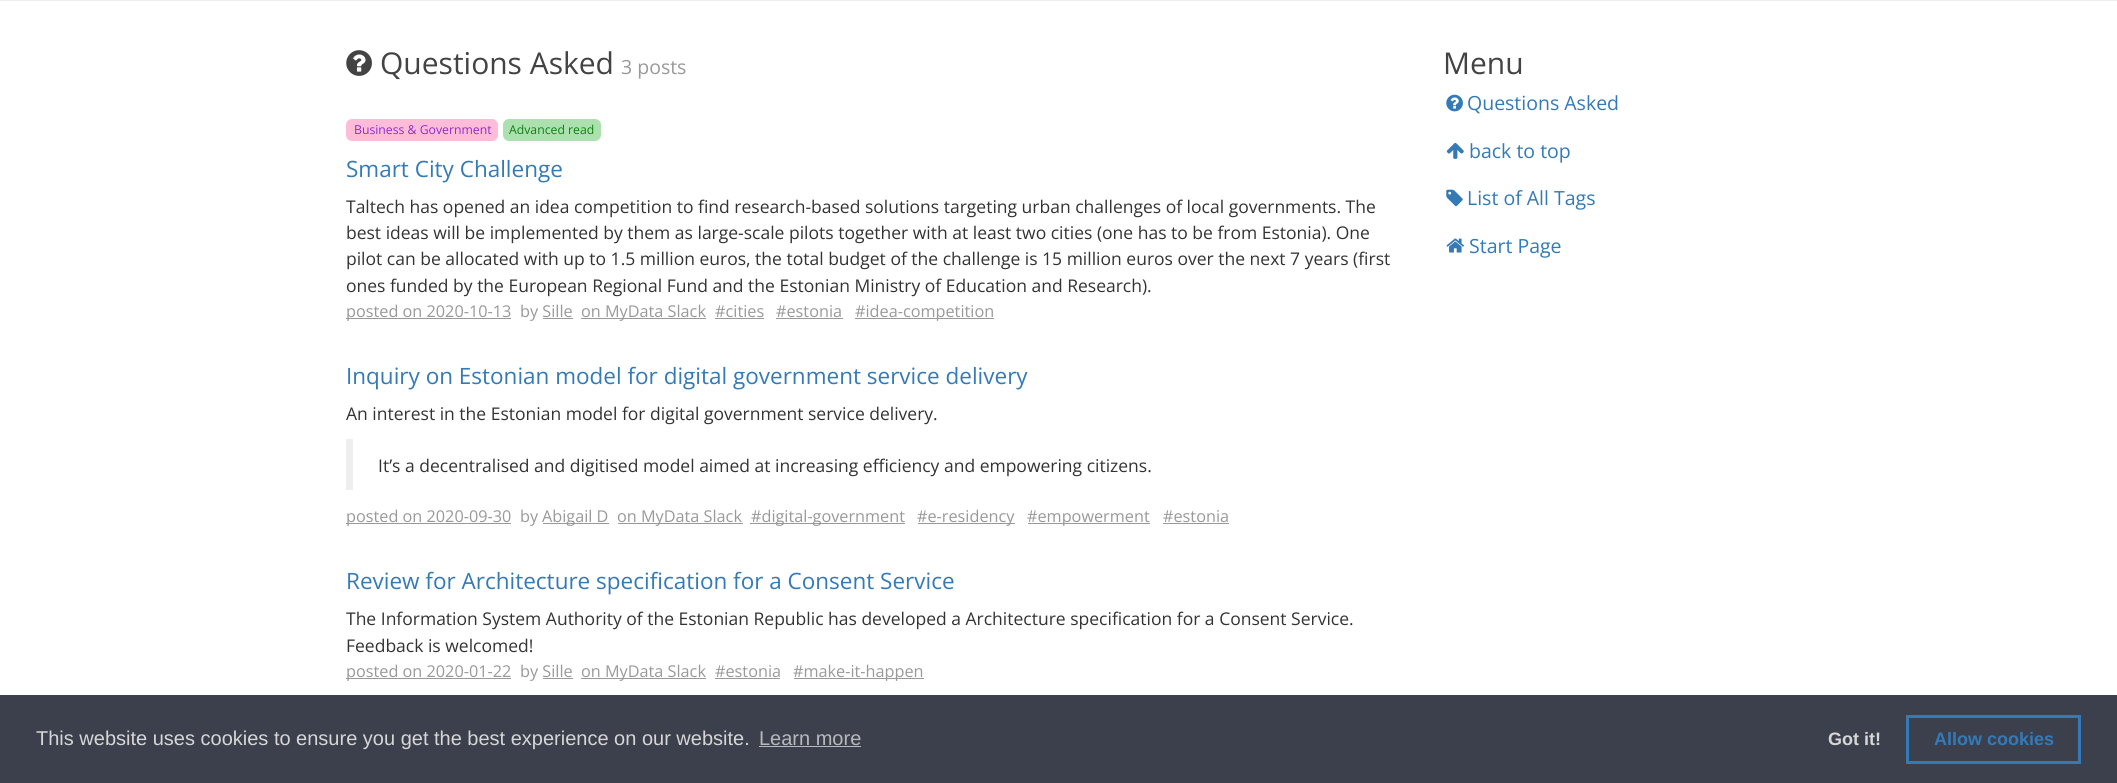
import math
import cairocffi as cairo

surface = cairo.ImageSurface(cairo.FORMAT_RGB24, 2117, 783)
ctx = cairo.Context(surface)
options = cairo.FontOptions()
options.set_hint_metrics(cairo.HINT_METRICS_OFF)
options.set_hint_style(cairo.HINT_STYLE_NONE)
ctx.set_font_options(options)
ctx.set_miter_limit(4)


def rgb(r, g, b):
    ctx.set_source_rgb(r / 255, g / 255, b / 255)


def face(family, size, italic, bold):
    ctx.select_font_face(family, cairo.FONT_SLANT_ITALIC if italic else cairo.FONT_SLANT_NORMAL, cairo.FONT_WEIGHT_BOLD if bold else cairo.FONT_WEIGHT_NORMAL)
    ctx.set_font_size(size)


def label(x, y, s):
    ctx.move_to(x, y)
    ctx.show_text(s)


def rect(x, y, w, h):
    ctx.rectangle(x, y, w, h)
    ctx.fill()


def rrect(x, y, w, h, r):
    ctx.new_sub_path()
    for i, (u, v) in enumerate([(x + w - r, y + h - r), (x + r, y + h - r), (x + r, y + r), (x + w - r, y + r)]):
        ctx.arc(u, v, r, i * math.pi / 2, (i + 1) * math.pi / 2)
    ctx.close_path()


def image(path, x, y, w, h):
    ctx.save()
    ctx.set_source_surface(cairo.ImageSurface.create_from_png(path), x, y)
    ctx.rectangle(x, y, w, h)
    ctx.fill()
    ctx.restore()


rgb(255, 255, 255)
ctx.paint()
rgb(238, 238, 238)
rect(0, 0, 2117, 1)
image('image0.png', 346, 50, 26, 26)
face('Open Sans', 30, 0, 0)
rgb(67, 67, 67)
label(380, 74, 'Questions Asked')
face('Open Sans', 19.5, 0, 0)
rgb(153, 153, 153)
label(621, 74, '3 posts')
rgb(255, 188, 217)
rrect(346, 119, 152, 22, 6)
ctx.fill()
face('Open Sans', 12.25, 0, 0)
rgb(142, 44, 197)
label(354, 134, 'Business & Government')
rgb(172, 225, 175)
rrect(503, 119, 98, 22, 6)
ctx.fill()
rgb(16, 127, 18)
label(509, 134, 'Advanced read')
face('Open Sans', 22.5, 0, 0)
rgb(51, 122, 183)
label(346, 177, 'Smart City Challenge')
face('Open Sans', 17.5, 0, 0)
rgb(51, 51, 51)
label(346, 213, 'Taltech has opened an idea competition to find research-based solutions targeting urban challenges of local governments. The')
label(346, 239, 'best ideas will be implemented by them as large-scale pilots together with at least two cities (one has to be from Estonia). One')
label(346, 265, 'pilot can be allocated with up to 1.5 million euros, the total budget of the challenge is 15 million euros over the next 7 years (first')
label(346, 292, 'ones funded by the European Regional Fund and the Estonian Ministry of Education and Research).')
rgb(153, 153, 153)
rect(346, 318, 165, 1)
face('Open Sans', 16.25, 0, 0)
label(346, 317, 'posted on 2020-10-13')
label(520, 317, 'by Sille')
rect(543, 318, 30, 1)
rect(581, 318, 125, 1)
label(581, 317, 'on MyData Slack')
label(715, 317, '#cities')
rect(715, 318, 49, 1)
label(776, 317, '#estonia')
rect(776, 318, 67, 1)
rect(855, 318, 139, 1)
label(855, 317, '#idea-competition')
face('Open Sans', 22.5, 0, 0)
rgb(51, 122, 183)
label(346, 384, 'Inquiry on Estonian model for digital government service delivery')
face('Open Sans', 17.5, 0, 0)
rgb(51, 51, 51)
label(346, 420, 'An interest in the Estonian model for digital government service delivery.')
rgb(238, 238, 238)
rect(346, 439, 7, 51)
rgb(51, 51, 51)
label(378, 472, 'It’s a decentralised and digitised model aimed at increasing efficiency and empowering citizens.')
rgb(153, 153, 153)
rect(346, 523, 165, 1)
face('Open Sans', 16.25, 0, 0)
label(346, 522, 'posted on 2020-09-30')
label(520, 522, 'by')
rect(543, 523, 66, 1)
label(542, 522, 'Abigail D')
rect(618, 523, 125, 1)
label(617, 522, 'on MyData Slack')
rect(750, 523, 155, 1)
label(751, 522, '#digital-government')
rect(918, 523, 97, 1)
label(917, 522, '#e-residency')
rect(1028, 523, 122, 1)
label(1027, 522, '#empowerment')
label(1163, 522, '#estonia')
rect(1163, 523, 66, 1)
face('Open Sans', 22.5, 0, 0)
rgb(51, 122, 183)
label(346, 589, 'Review for Architecture specification for a Consent Service')
face('Open Sans', 17.5, 0, 0)
rgb(51, 51, 51)
label(346, 625, 'The Information System Authority of the Estonian Republic has developed a Architecture specification for a Consent Service.')
label(346, 652, 'Feedback is welcomed!')
rgb(153, 153, 153)
rect(346, 678, 165, 1)
face('Open Sans', 16.25, 0, 0)
label(346, 677, 'posted on 2020-01-22')
label(520, 677, 'by Sille')
rect(543, 678, 30, 1)
rect(581, 678, 125, 1)
label(581, 677, 'on MyData Slack')
label(715, 677, '#estonia')
rect(715, 678, 65, 1)
rect(794, 678, 130, 1)
label(793, 677, '#make-it-happen')
face('Open Sans', 30, 0, 0)
rgb(67, 67, 67)
label(1443, 74, 'Menu')
image('image1.png', 1446, 94, 17, 18)
face('Open Sans', 19.5, 0, 0)
rgb(51, 122, 183)
label(1467, 110, 'Questions Asked')
image('image2.png', 1446, 142, 18, 17)
label(1469, 158, 'back to top')
image('image3.png', 1446, 189, 17, 18)
label(1467, 205, 'List of All Tags')
image('image4.png', 1446, 238, 18, 15)
label(1469, 253, 'Start Page')
rgb(60, 64, 77)
rect(0, 695, 2117, 88)
face('Liberation Sans', 20, 0, 0)
rgb(214, 214, 214)
label(36, 745, 'This website uses cookies to ensure you get the best experience on our website.')
rgb(183, 184, 187)
label(759, 745, 'Learn more')
rect(759, 746, 102, 1)
face('Liberation Sans', 18, 0, 1)
rgb(214, 214, 214)
label(1828, 745, 'Got it!')
ctx.rectangle(1907.5, 716.5, 172, 46)
rgb(51, 122, 183)
ctx.set_line_width(3)
ctx.stroke()
label(1934, 745, 'Allow cookies')
surface.write_to_png('render.png')
